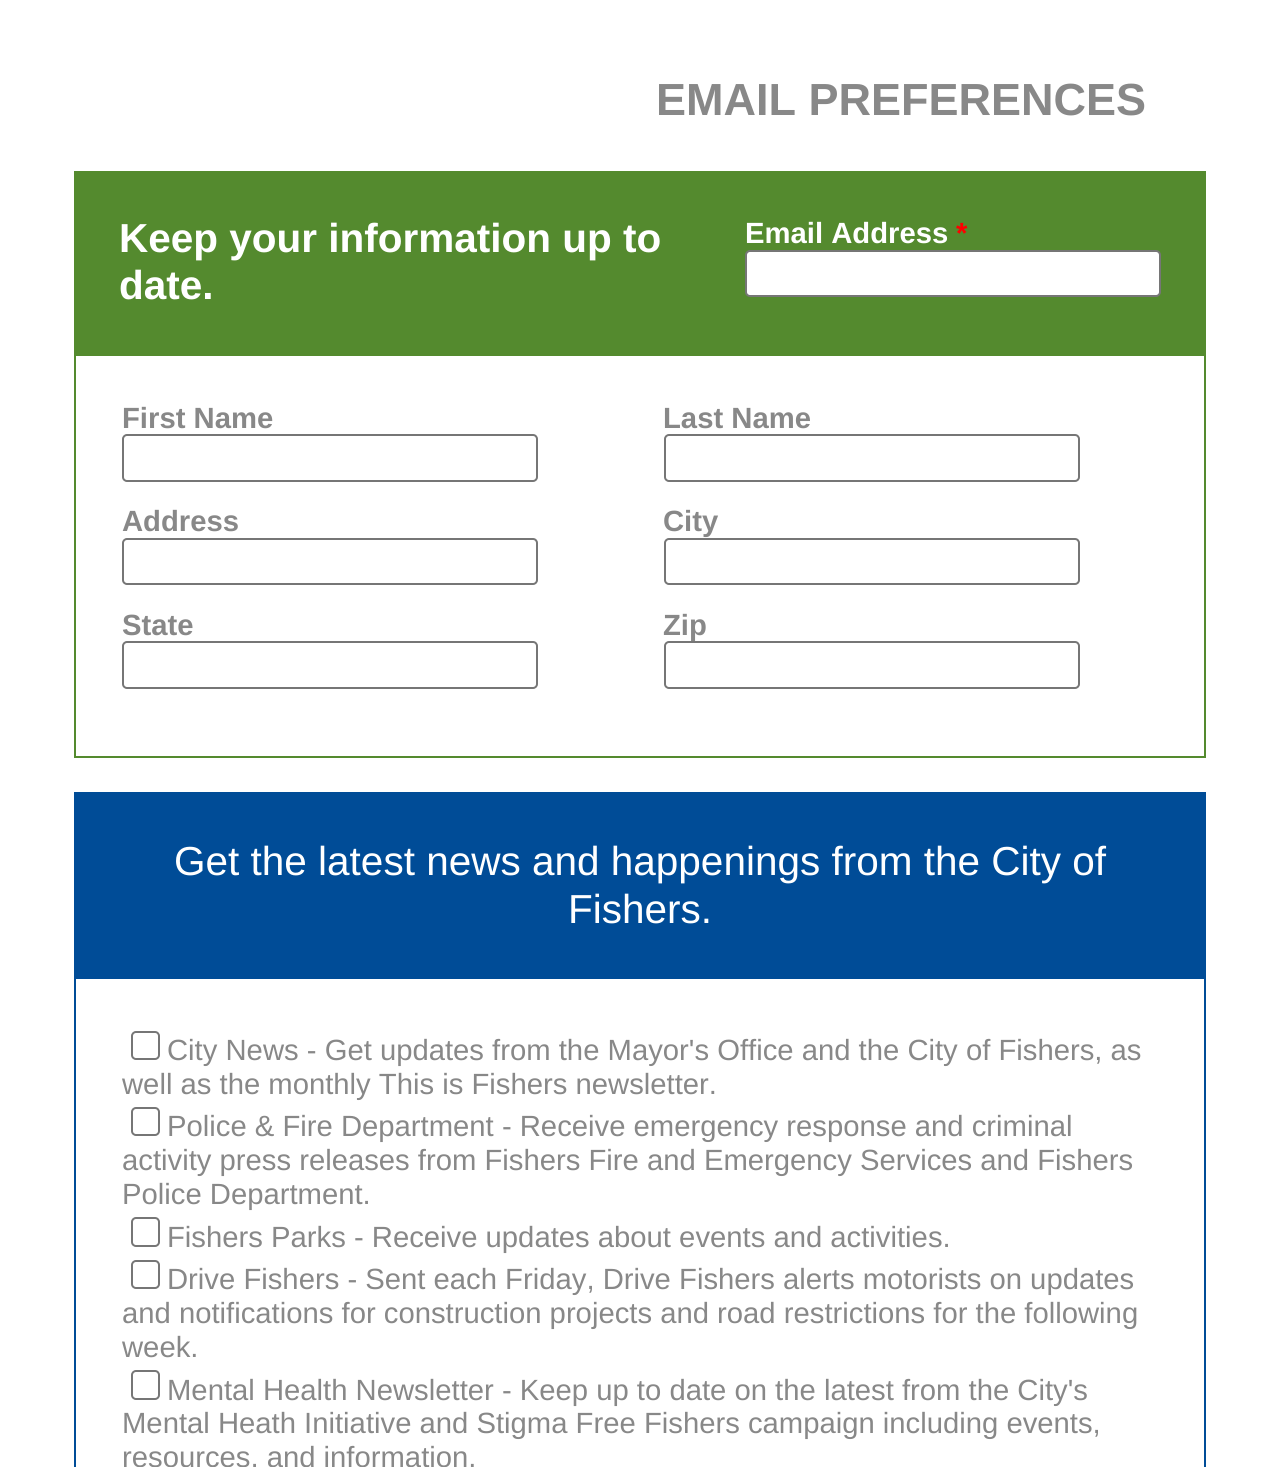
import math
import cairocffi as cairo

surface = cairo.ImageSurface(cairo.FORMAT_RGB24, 1279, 1467)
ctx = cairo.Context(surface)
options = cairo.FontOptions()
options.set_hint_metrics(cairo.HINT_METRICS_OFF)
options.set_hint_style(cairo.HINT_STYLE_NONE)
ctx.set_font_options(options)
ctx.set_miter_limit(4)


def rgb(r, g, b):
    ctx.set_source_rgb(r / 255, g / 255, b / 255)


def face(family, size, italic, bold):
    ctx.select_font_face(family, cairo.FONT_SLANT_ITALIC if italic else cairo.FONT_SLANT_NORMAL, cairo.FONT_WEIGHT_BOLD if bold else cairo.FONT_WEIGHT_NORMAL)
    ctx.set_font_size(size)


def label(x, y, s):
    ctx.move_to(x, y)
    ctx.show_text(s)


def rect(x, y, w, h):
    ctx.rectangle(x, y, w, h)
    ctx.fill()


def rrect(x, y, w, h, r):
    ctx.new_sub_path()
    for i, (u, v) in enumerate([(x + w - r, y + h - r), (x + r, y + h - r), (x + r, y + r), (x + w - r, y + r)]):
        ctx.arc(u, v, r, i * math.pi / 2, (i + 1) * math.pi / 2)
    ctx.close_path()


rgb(255, 255, 255)
ctx.paint()
face('Liberation Sans', 45, 0, 1)
rgb(136, 136, 136)
label(656, 115, 'EMAIL PREFERENCES')
rgb(84, 138, 46)
rect(74, 171, 1132, 45)
rect(74, 216, 1132, 140)
face('Liberation Sans', 40.5, 0, 1)
rgb(255, 255, 255)
label(119, 252, 'Keep your information up to')
label(119, 299, 'date.')
face('Liberation Sans', 29.25, 0, 1)
label(745, 243, 'Email Address')
rgb(255, 0, 0)
label(956, 243, '*')
rgb(255, 255, 255)
rrect(746, 251, 414, 45, 4)
ctx.fill_preserve()
rgb(118, 118, 118)
ctx.stroke()
rgb(84, 138, 46)
rect(1204, 356, 2, 402)
rect(74, 756, 1132, 2)
rect(74, 356, 2, 402)
rgb(136, 136, 136)
label(122, 428, 'First Name')
rrect(123, 435, 414, 46, 4)
rgb(118, 118, 118)
ctx.stroke()
rgb(136, 136, 136)
label(663, 428, 'Last Name')
rrect(665, 435, 414, 46, 4)
rgb(118, 118, 118)
ctx.stroke()
rgb(136, 136, 136)
label(122, 531, 'Address')
rrect(123, 539, 414, 45, 4)
rgb(118, 118, 118)
ctx.stroke()
rgb(136, 136, 136)
label(663, 531, 'City')
rrect(665, 539, 414, 45, 4)
rgb(118, 118, 118)
ctx.stroke()
rgb(136, 136, 136)
label(122, 635, 'State')
rrect(123, 642, 414, 46, 4)
rgb(118, 118, 118)
ctx.stroke()
rgb(136, 136, 136)
label(663, 635, 'Zip')
rgb(255, 255, 255)
rrect(665, 642, 414, 46, 4)
ctx.fill_preserve()
rgb(118, 118, 118)
ctx.stroke()
rgb(0, 76, 151)
rect(74, 792, 1132, 187)
face('Liberation Sans', 40.5, 0, 0)
rgb(255, 255, 255)
label(174, 875, 'Get the latest news and happenings from the City of')
label(568, 923, 'Fishers.')
rgb(0, 76, 151)
rect(1204, 979, 2, 488)
rect(74, 979, 2, 488)
rrect(132, 1032, 27, 27, 4)
rgb(118, 118, 118)
ctx.stroke()
face('Liberation Sans', 29.25, 0, 0)
rgb(136, 136, 136)
label(167, 1060, 'City News - Get updates from the Mayor\'s Office and the City of Fishers, as')
label(122, 1094, 'well as the monthly This is Fishers newsletter.')
rrect(132, 1108, 27, 27, 4)
rgb(118, 118, 118)
ctx.stroke()
rgb(136, 136, 136)
label(167, 1136, 'Police & Fire Department - Receive emergency response and criminal')
label(122, 1170, 'activity press releases from Fishers Fire and Emergency Services and Fishers')
label(122, 1204, 'Police Department.')
rrect(132, 1218, 27, 28, 4)
rgb(118, 118, 118)
ctx.stroke()
rgb(136, 136, 136)
label(167, 1247, 'Fishers Parks - Receive updates about events and activities.')
rrect(132, 1261, 27, 27, 4)
rgb(118, 118, 118)
ctx.stroke()
rgb(136, 136, 136)
label(167, 1289, 'Drive Fishers - Sent each Friday, Drive Fishers alerts motorists on updates')
label(122, 1323, 'and notifications for construction projects and road restrictions for the following')
label(122, 1357, 'week.')
rrect(132, 1371, 27, 28, 4)
rgb(118, 118, 118)
ctx.stroke()
rgb(136, 136, 136)
label(167, 1400, 'Mental Health Newsletter - Keep up to date on the latest from the City\'s')
label(122, 1433, 'Mental Heath Initiative and Stigma Free Fishers campaign including events,')
label(122, 1467, 'resources, and information.')
surface.write_to_png('render.png')
